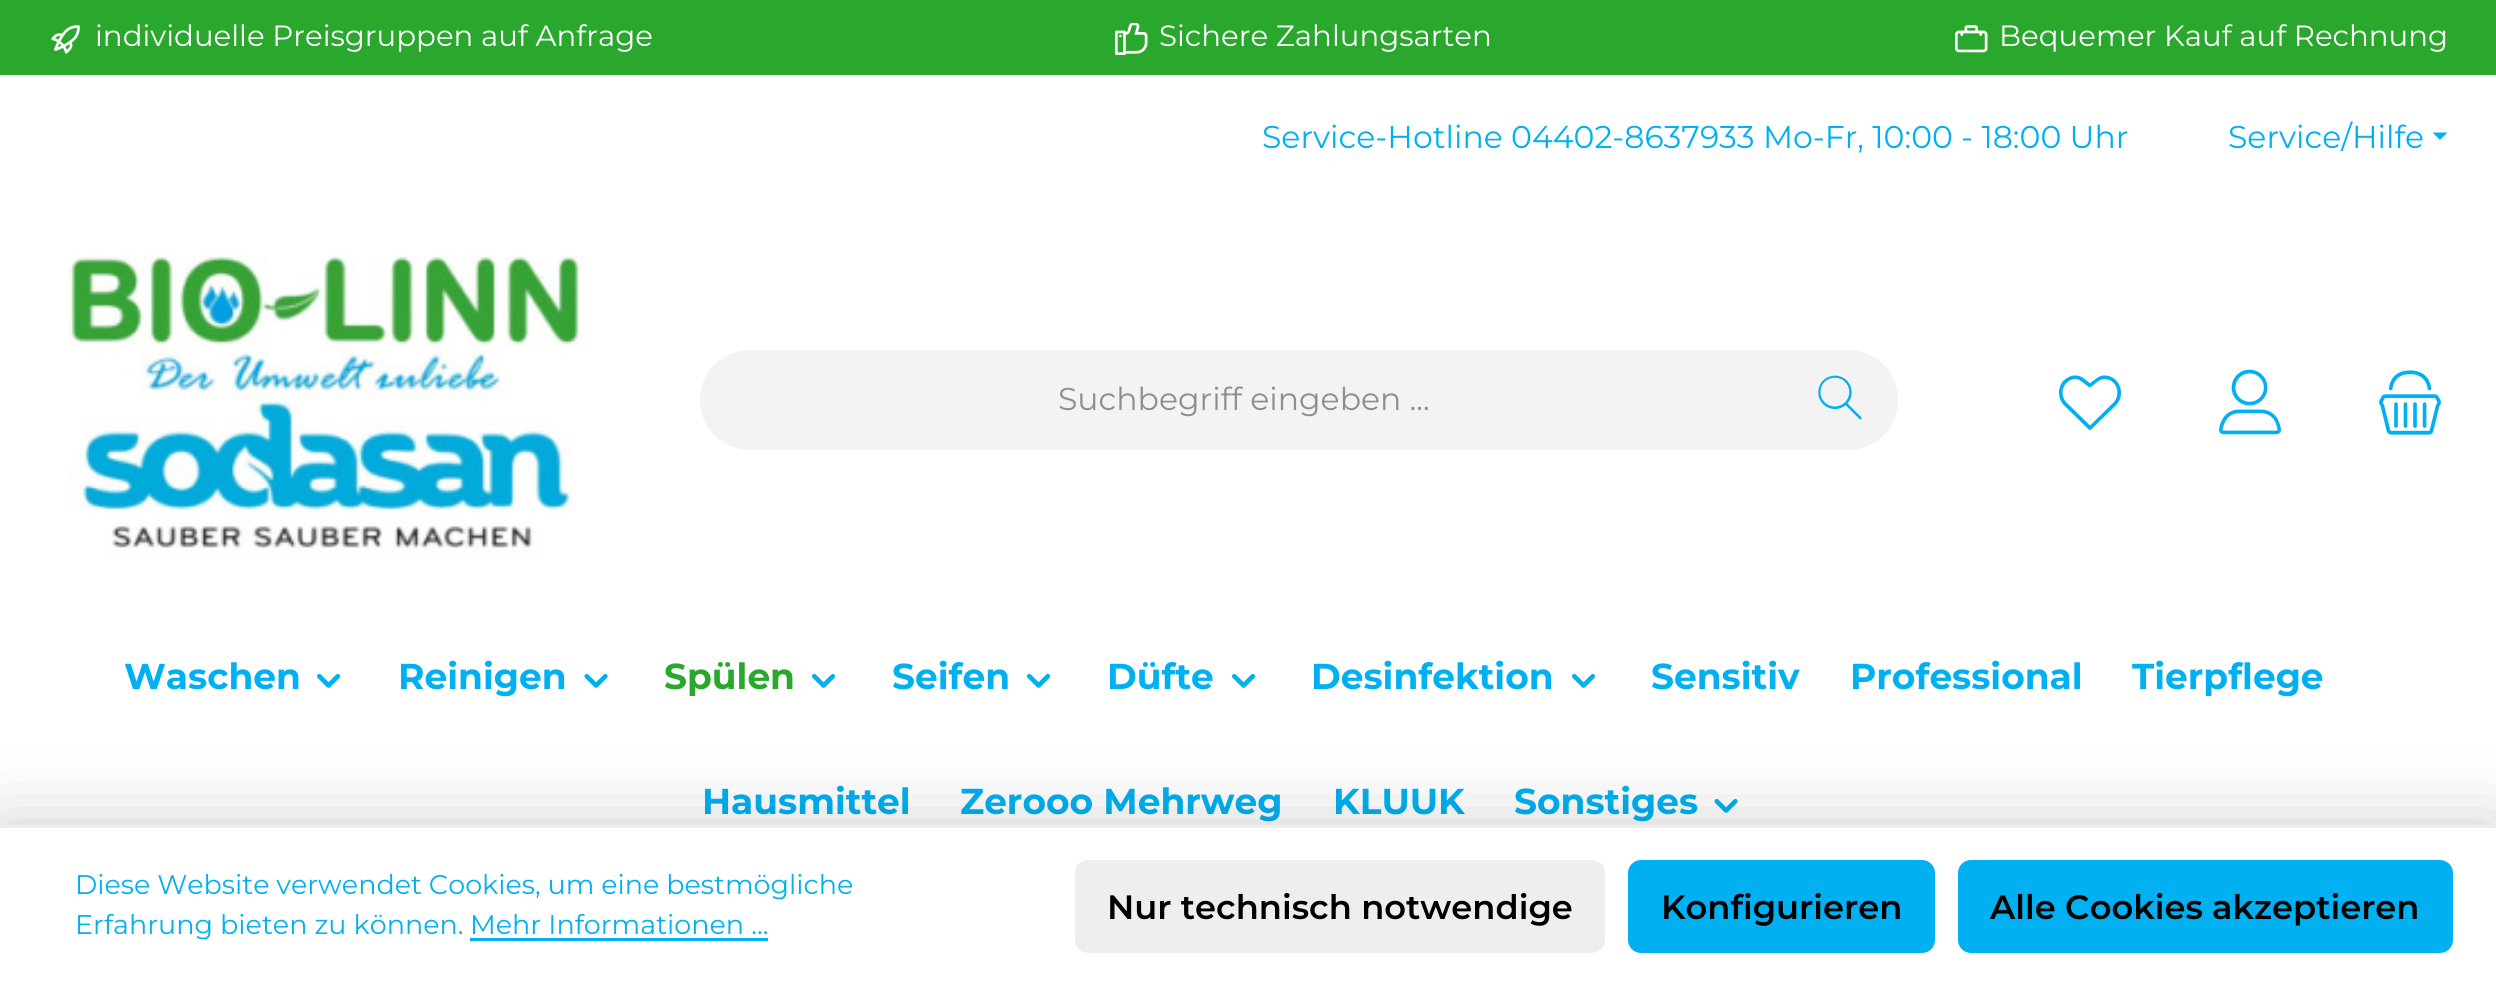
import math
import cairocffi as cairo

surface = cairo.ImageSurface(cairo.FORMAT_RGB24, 2496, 983)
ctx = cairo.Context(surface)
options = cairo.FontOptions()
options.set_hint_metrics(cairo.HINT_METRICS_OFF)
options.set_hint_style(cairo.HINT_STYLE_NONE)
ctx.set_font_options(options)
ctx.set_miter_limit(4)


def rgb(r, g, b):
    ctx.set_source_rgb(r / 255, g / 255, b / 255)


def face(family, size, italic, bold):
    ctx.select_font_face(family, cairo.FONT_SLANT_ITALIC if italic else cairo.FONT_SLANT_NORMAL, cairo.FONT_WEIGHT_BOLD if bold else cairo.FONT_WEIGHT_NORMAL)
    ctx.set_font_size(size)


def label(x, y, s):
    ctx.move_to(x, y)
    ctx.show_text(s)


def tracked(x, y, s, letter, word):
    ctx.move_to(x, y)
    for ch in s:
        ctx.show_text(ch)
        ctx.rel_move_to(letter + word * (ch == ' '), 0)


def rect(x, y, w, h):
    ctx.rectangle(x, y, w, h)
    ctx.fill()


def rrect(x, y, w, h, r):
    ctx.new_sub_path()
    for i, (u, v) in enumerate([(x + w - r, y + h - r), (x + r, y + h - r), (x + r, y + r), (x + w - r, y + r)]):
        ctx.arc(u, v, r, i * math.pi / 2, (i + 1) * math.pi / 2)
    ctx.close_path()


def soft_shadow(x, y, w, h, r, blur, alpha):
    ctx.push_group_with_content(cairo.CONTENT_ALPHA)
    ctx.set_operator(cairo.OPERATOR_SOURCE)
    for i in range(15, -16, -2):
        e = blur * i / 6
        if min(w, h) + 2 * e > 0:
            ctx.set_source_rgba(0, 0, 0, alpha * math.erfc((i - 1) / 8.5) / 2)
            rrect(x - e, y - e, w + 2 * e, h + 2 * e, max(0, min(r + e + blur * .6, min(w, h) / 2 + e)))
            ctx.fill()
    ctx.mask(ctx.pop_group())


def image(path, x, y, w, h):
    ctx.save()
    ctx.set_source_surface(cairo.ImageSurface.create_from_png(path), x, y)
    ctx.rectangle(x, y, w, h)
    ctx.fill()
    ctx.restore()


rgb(255, 255, 255)
ctx.paint()
rgb(42, 168, 45)
rect(0, 0, 2496, 75)
image('image0.png', 51, 25, 29, 29)
face('Montserrat Thin', 29.25, 0, 0)
rgb(255, 255, 255)
label(95, 46, 'individuelle Preisgruppen auf Anfrage')
image('image1.png', 1115, 23, 33, 32)
label(1159, 46, 'Sichere Zahlungsarten')
image('image2.png', 1955, 25, 33, 28)
label(1999, 46, 'Bequemer Kauf auf Rechnung')
face('Montserrat Thin', 31.5, 0, 0)
rgb(0, 176, 240)
label(1262, 148, 'Service-Hotline 04402-8637933 Mo-Fr, 10:00 - 18:00 Uhr')
label(2228, 148, 'Service/Hilfe')
ctx.new_path()
ctx.move_to(2432.5, 132.5)
ctx.line_to(2447.5, 132.5)
ctx.line_to(2440, 140)
ctx.close_path()
ctx.fill()
image('image3.png', 68, 255, 522, 303)
rgb(243, 243, 243)
ctx.new_path()
ctx.move_to(750, 351.5)
ctx.line_to(1786.5, 351.5)
ctx.line_to(1786.5, 448.5)
ctx.line_to(750, 448.5)
ctx.curve_to(723, 448.5, 701.5, 427, 701.5, 400)
ctx.curve_to(701.5, 373, 723, 351.5, 750, 351.5)
ctx.close_path()
ctx.fill_preserve()
ctx.set_line_width(3)
ctx.stroke()
rgb(142, 142, 142)
label(1058, 410, 'Suchbegriff eingeben ...')
rgb(243, 243, 243)
ctx.new_path()
ctx.move_to(1785, 350)
ctx.line_to(1848, 350)
ctx.curve_to(1875.5, 350, 1898, 372.5, 1898, 400)
ctx.curve_to(1898, 427.5, 1875.5, 450, 1848, 450)
ctx.line_to(1785, 450)
ctx.close_path()
ctx.fill()
ctx.set_fill_rule(cairo.FILL_RULE_EVEN_ODD)
ctx.new_path()
ctx.move_to(1785, 350)
ctx.line_to(1848, 350)
ctx.curve_to(1875, 350, 1898, 372, 1898, 400)
ctx.curve_to(1898, 428, 1875, 450, 1848, 450)
ctx.line_to(1785, 450)
ctx.close_path()
ctx.move_to(1785, 352)
ctx.line_to(1848, 352)
ctx.curve_to(1874, 352, 1895, 374, 1895, 400)
ctx.curve_to(1895, 426, 1874, 448, 1848, 448)
ctx.line_to(1785, 448)
ctx.close_path()
ctx.fill()
image('image4.png', 1818, 375, 44, 45)
image('image5.png', 2059, 375, 62, 55)
image('image6.png', 2219, 369, 62, 66)
image('image7.png', 2379, 370, 62, 65)
face('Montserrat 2 Thin', 36, 0, 0)
rgb(0, 176, 240)
label(124, 689, 'Waschen')
image('image8.png', 317, 673, 24, 15)
label(398, 689, 'Reinigen')
image('image9.png', 584, 673, 24, 15)
rgb(42, 168, 45)
label(664, 689, 'Spülen')
image('image8.png', 812, 673, 24, 15)
rgb(0, 176, 240)
label(892, 689, 'Seifen')
image('image8.png', 1027, 673, 24, 15)
label(1107, 689, 'Düfte')
image('image8.png', 1232, 673, 24, 15)
label(1311, 689, 'Desinfektion')
image('image8.png', 1572, 673, 24, 15)
label(1651, 689, 'Sensitiv')
label(1850, 689, 'Professional')
label(2132, 689, 'Tierpflege')
label(702, 814, 'Hausmittel')
label(960, 814, 'Zerooo Mehrweg')
label(1333, 814, 'KLUUK')
label(1514, 814, 'Sonstiges')
image('image9.png', 1714, 798, 24, 15)
rgb(0, 0, 0)
soft_shadow(0, 825, 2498, 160, 0, 37.5, 0.2)
rgb(255, 255, 255)
rect(0, 828, 2496, 155)
rgb(238, 238, 238)
rect(0, 825, 2496, 3)
face('Montserrat Thin', 27, 0, 0)
rgb(0, 176, 240)
tracked(75, 894, 'Diese Website verwendet Cookies, um eine bestmögliche', 0, -0.25)
label(75, 934, 'Erfahrung bieten zu können.')
label(470, 934, 'Mehr Informationen ...')
rect(470, 938, 298, 3)
rgb(238, 238, 238)
rrect(1076.5, 861.5, 527, 90, 11.5)
ctx.fill_preserve()
ctx.stroke()
face('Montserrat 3 Thin', 33.75, 0, 0)
rgb(0, 0, 0)
label(1107, 919, 'Nur technisch notwendige')
rgb(0, 176, 240)
rrect(1629.5, 861.5, 304, 90, 11.5)
ctx.fill_preserve()
ctx.stroke()
rgb(0, 0, 0)
label(1661, 919, 'Konfigurieren')
rgb(0, 176, 240)
rrect(1959.5, 861.5, 492, 90, 11.5)
ctx.fill_preserve()
ctx.stroke()
rgb(0, 0, 0)
label(1990, 919, 'Alle Cookies akzeptieren')
surface.write_to_png('render.png')
